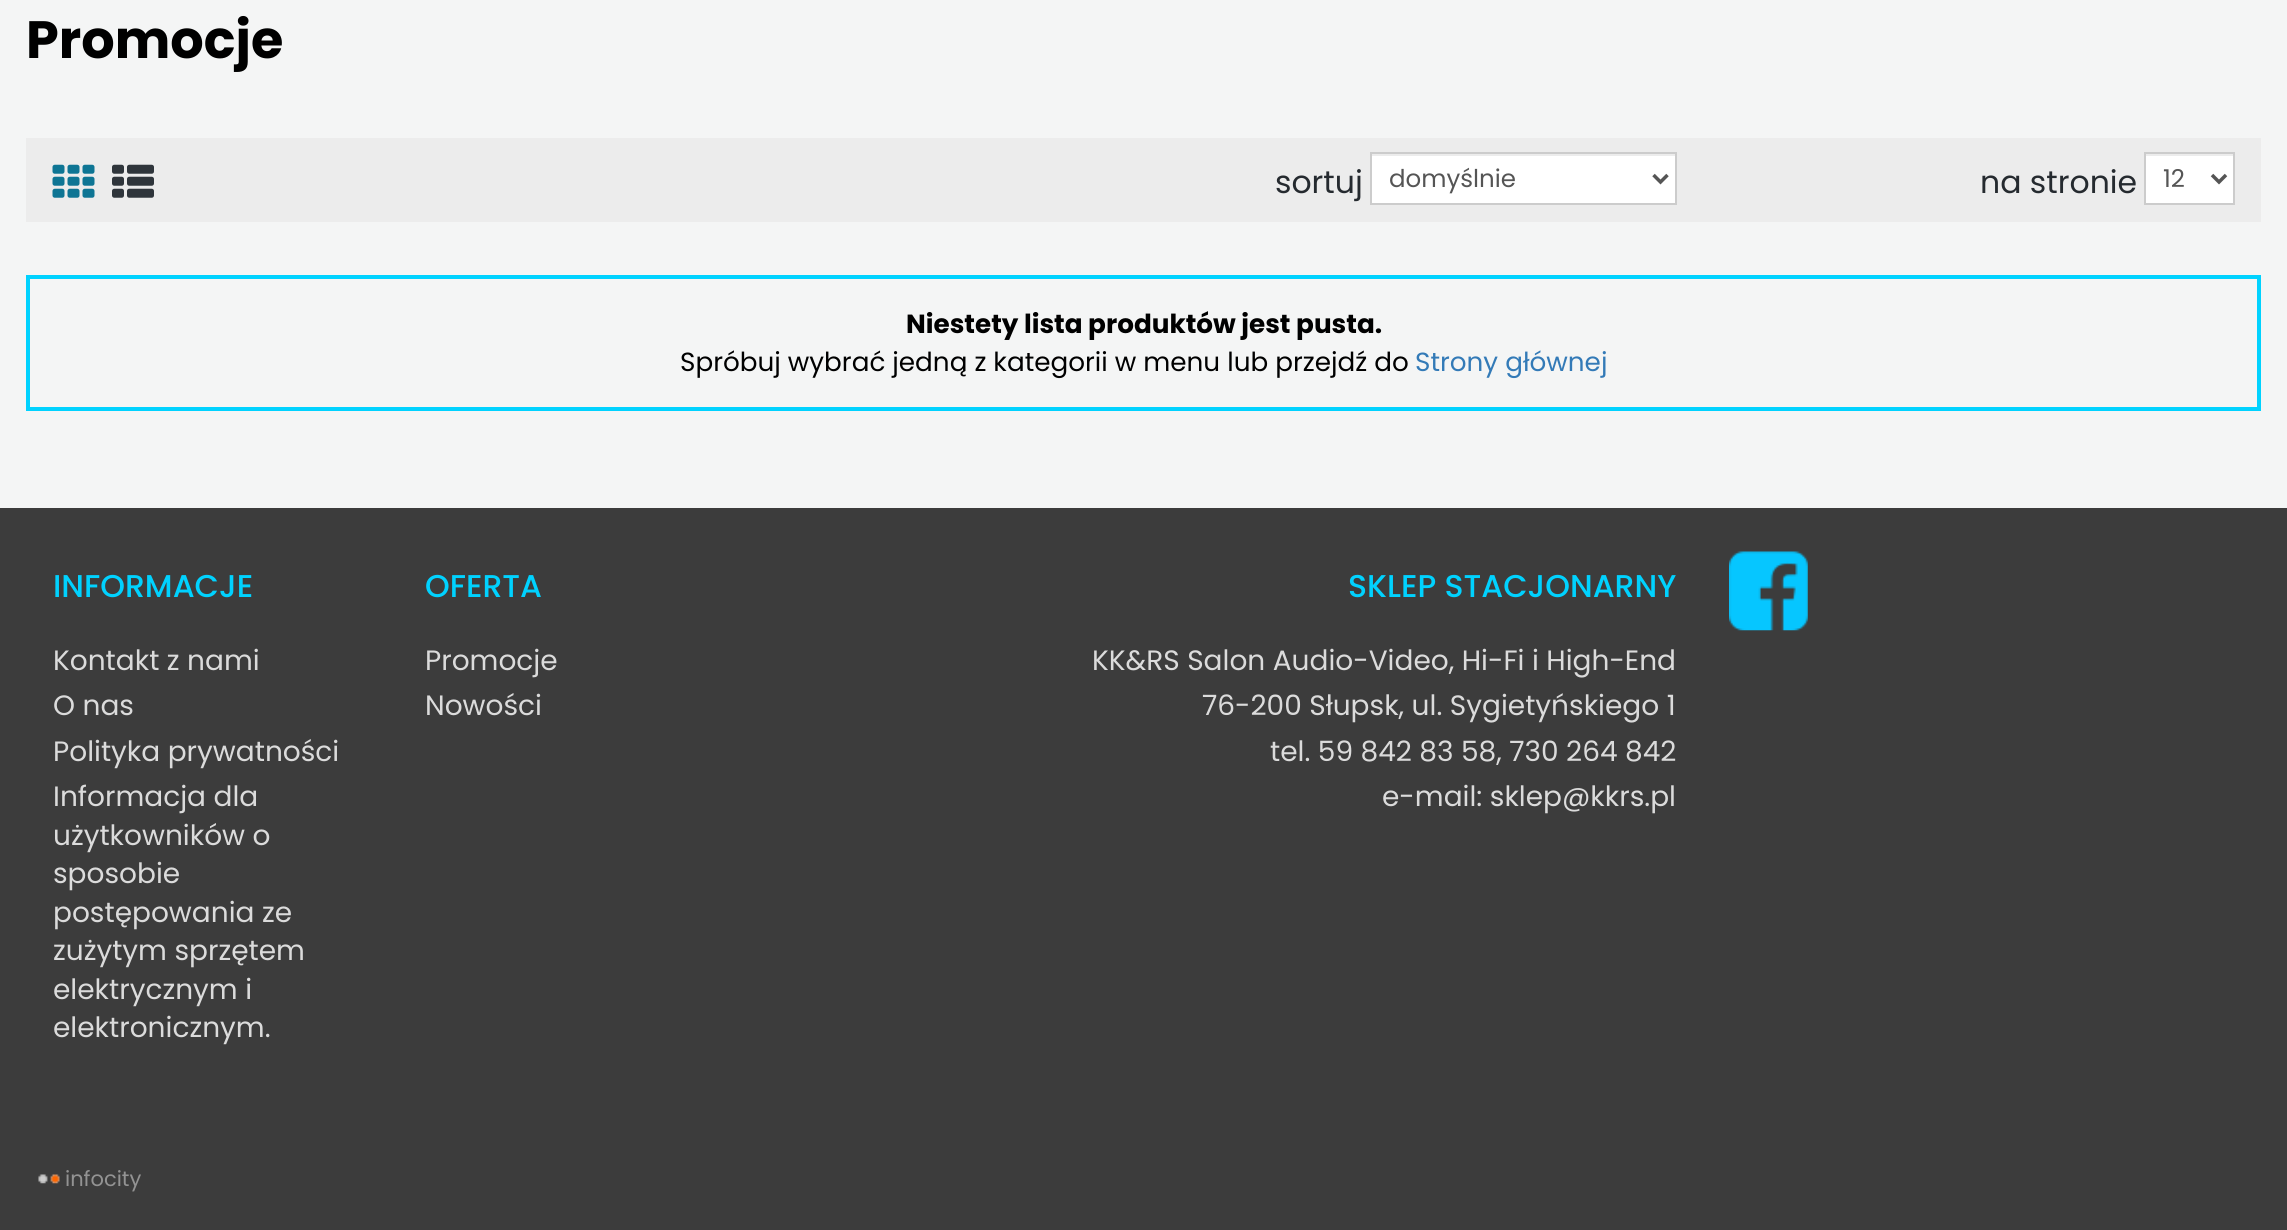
import math
import cairocffi as cairo

surface = cairo.ImageSurface(cairo.FORMAT_RGB24, 2287, 1230)
ctx = cairo.Context(surface)
options = cairo.FontOptions()
options.set_hint_metrics(cairo.HINT_METRICS_OFF)
options.set_hint_style(cairo.HINT_STYLE_NONE)
ctx.set_font_options(options)
ctx.set_miter_limit(4)


def rgb(r, g, b):
    ctx.set_source_rgb(r / 255, g / 255, b / 255)


def face(family, size, italic, bold):
    ctx.select_font_face(family, cairo.FONT_SLANT_ITALIC if italic else cairo.FONT_SLANT_NORMAL, cairo.FONT_WEIGHT_BOLD if bold else cairo.FONT_WEIGHT_NORMAL)
    ctx.set_font_size(size)


def label(x, y, s):
    ctx.move_to(x, y)
    ctx.show_text(s)


def rect(x, y, w, h):
    ctx.rectangle(x, y, w, h)
    ctx.fill()


def image(path, x, y, w, h):
    ctx.save()
    ctx.set_source_surface(cairo.ImageSurface.create_from_png(path), x, y)
    ctx.rectangle(x, y, w, h)
    ctx.fill()
    ctx.restore()


rgb(244, 245, 245)
ctx.paint()
face('Poppins', 52.5, 0, 1)
rgb(0, 0, 0)
label(26, 58, 'Promocje')
rgb(236, 236, 236)
rect(26, 138, 2235, 84)
image('image0.png', 52, 164, 43, 34)
image('image1.png', 112, 164, 42, 34)
face('Poppins', 31.5, 0, 0)
rgb(37, 42, 47)
label(1275, 193, 'sortuj')
rgb(255, 255, 255)
rect(1372, 156, 303, 47)
ctx.rectangle(1371, 153, 305, 51)
rgb(204, 204, 204)
ctx.stroke()
ctx.new_path()
ctx.move_to(1653.5, 175)
ctx.line_to(1660.5, 182)
ctx.line_to(1667.5, 175)
rgb(85, 85, 85)
ctx.set_line_width(3.5)
ctx.stroke()
face('Poppins', 24.5, 0, 0)
label(1389, 187, 'domyślnie')
face('Poppins', 31.5, 0, 0)
rgb(37, 42, 47)
label(1980, 193, 'na stronie')
rgb(255, 255, 255)
rect(2146, 156, 87, 47)
ctx.rectangle(2145, 153, 89, 51)
rgb(204, 204, 204)
ctx.set_line_width(2)
ctx.stroke()
ctx.new_path()
ctx.move_to(2212, 175)
ctx.line_to(2219, 182)
ctx.line_to(2226, 175)
rgb(85, 85, 85)
ctx.set_line_width(3.5)
ctx.stroke()
face('Poppins', 24.5, 0, 0)
label(2163, 187, '12')
ctx.rectangle(28, 277, 2231, 132)
rgb(0, 210, 255)
ctx.set_line_width(4)
ctx.stroke()
face('Poppins', 26.25, 0, 1)
rgb(0, 0, 0)
label(906, 333, 'Niestety lista produktów jest pusta.')
face('Poppins', 26.25, 0, 0)
label(680, 371, 'Spróbuj wybrać jedną z kategorii w menu lub przejdź do')
rgb(51, 122, 183)
label(1415, 371, 'Strony głównej')
rgb(60, 60, 60)
rect(0, 508, 2287, 722)
face('Poppins Medium', 31.5, 0, 0)
rgb(0, 210, 255)
label(53, 597, 'INFORMACJE')
face('Poppins', 28, 0, 0)
rgb(219, 219, 219)
label(53, 670, 'Kontakt z nami')
label(53, 715, 'O nas')
label(53, 761, 'Polityka prywatności')
label(53, 806, 'Informacja dla')
label(53, 845, 'użytkowników o')
label(53, 883, 'sposobie')
label(53, 922, 'postępowania ze')
label(53, 960, 'zużytym sprzętem')
label(53, 999, 'elektrycznym i')
label(53, 1037, 'elektronicznym.')
face('Poppins Medium', 31.5, 0, 0)
rgb(0, 210, 255)
label(425, 597, 'OFERTA')
face('Poppins', 28, 0, 0)
rgb(219, 219, 219)
label(425, 670, 'Promocje')
label(425, 715, 'Nowości')
face('Poppins Medium', 31.5, 0, 0)
rgb(0, 210, 255)
label(1348, 597, 'SKLEP STACJONARNY')
face('Poppins', 28, 0, 0)
rgb(219, 219, 219)
label(1092, 670, 'KK&RS Salon Audio-Video, Hi-Fi i High-End')
label(1202, 715, '76-200 Słupsk, ul. Sygietyńskiego 1')
label(1270, 761, 'tel. 59 842 83 58, 730 264 842')
label(1382, 806, 'e-mail: sklep@kkrs.pl')
image('image2.png', 1729, 551, 79, 80)
image('image3.png', 38, 1174, 22, 10)
face('Poppins', 21, 0, 0)
rgb(147, 147, 147)
label(65, 1186, 'infocity')
surface.write_to_png('render.png')
